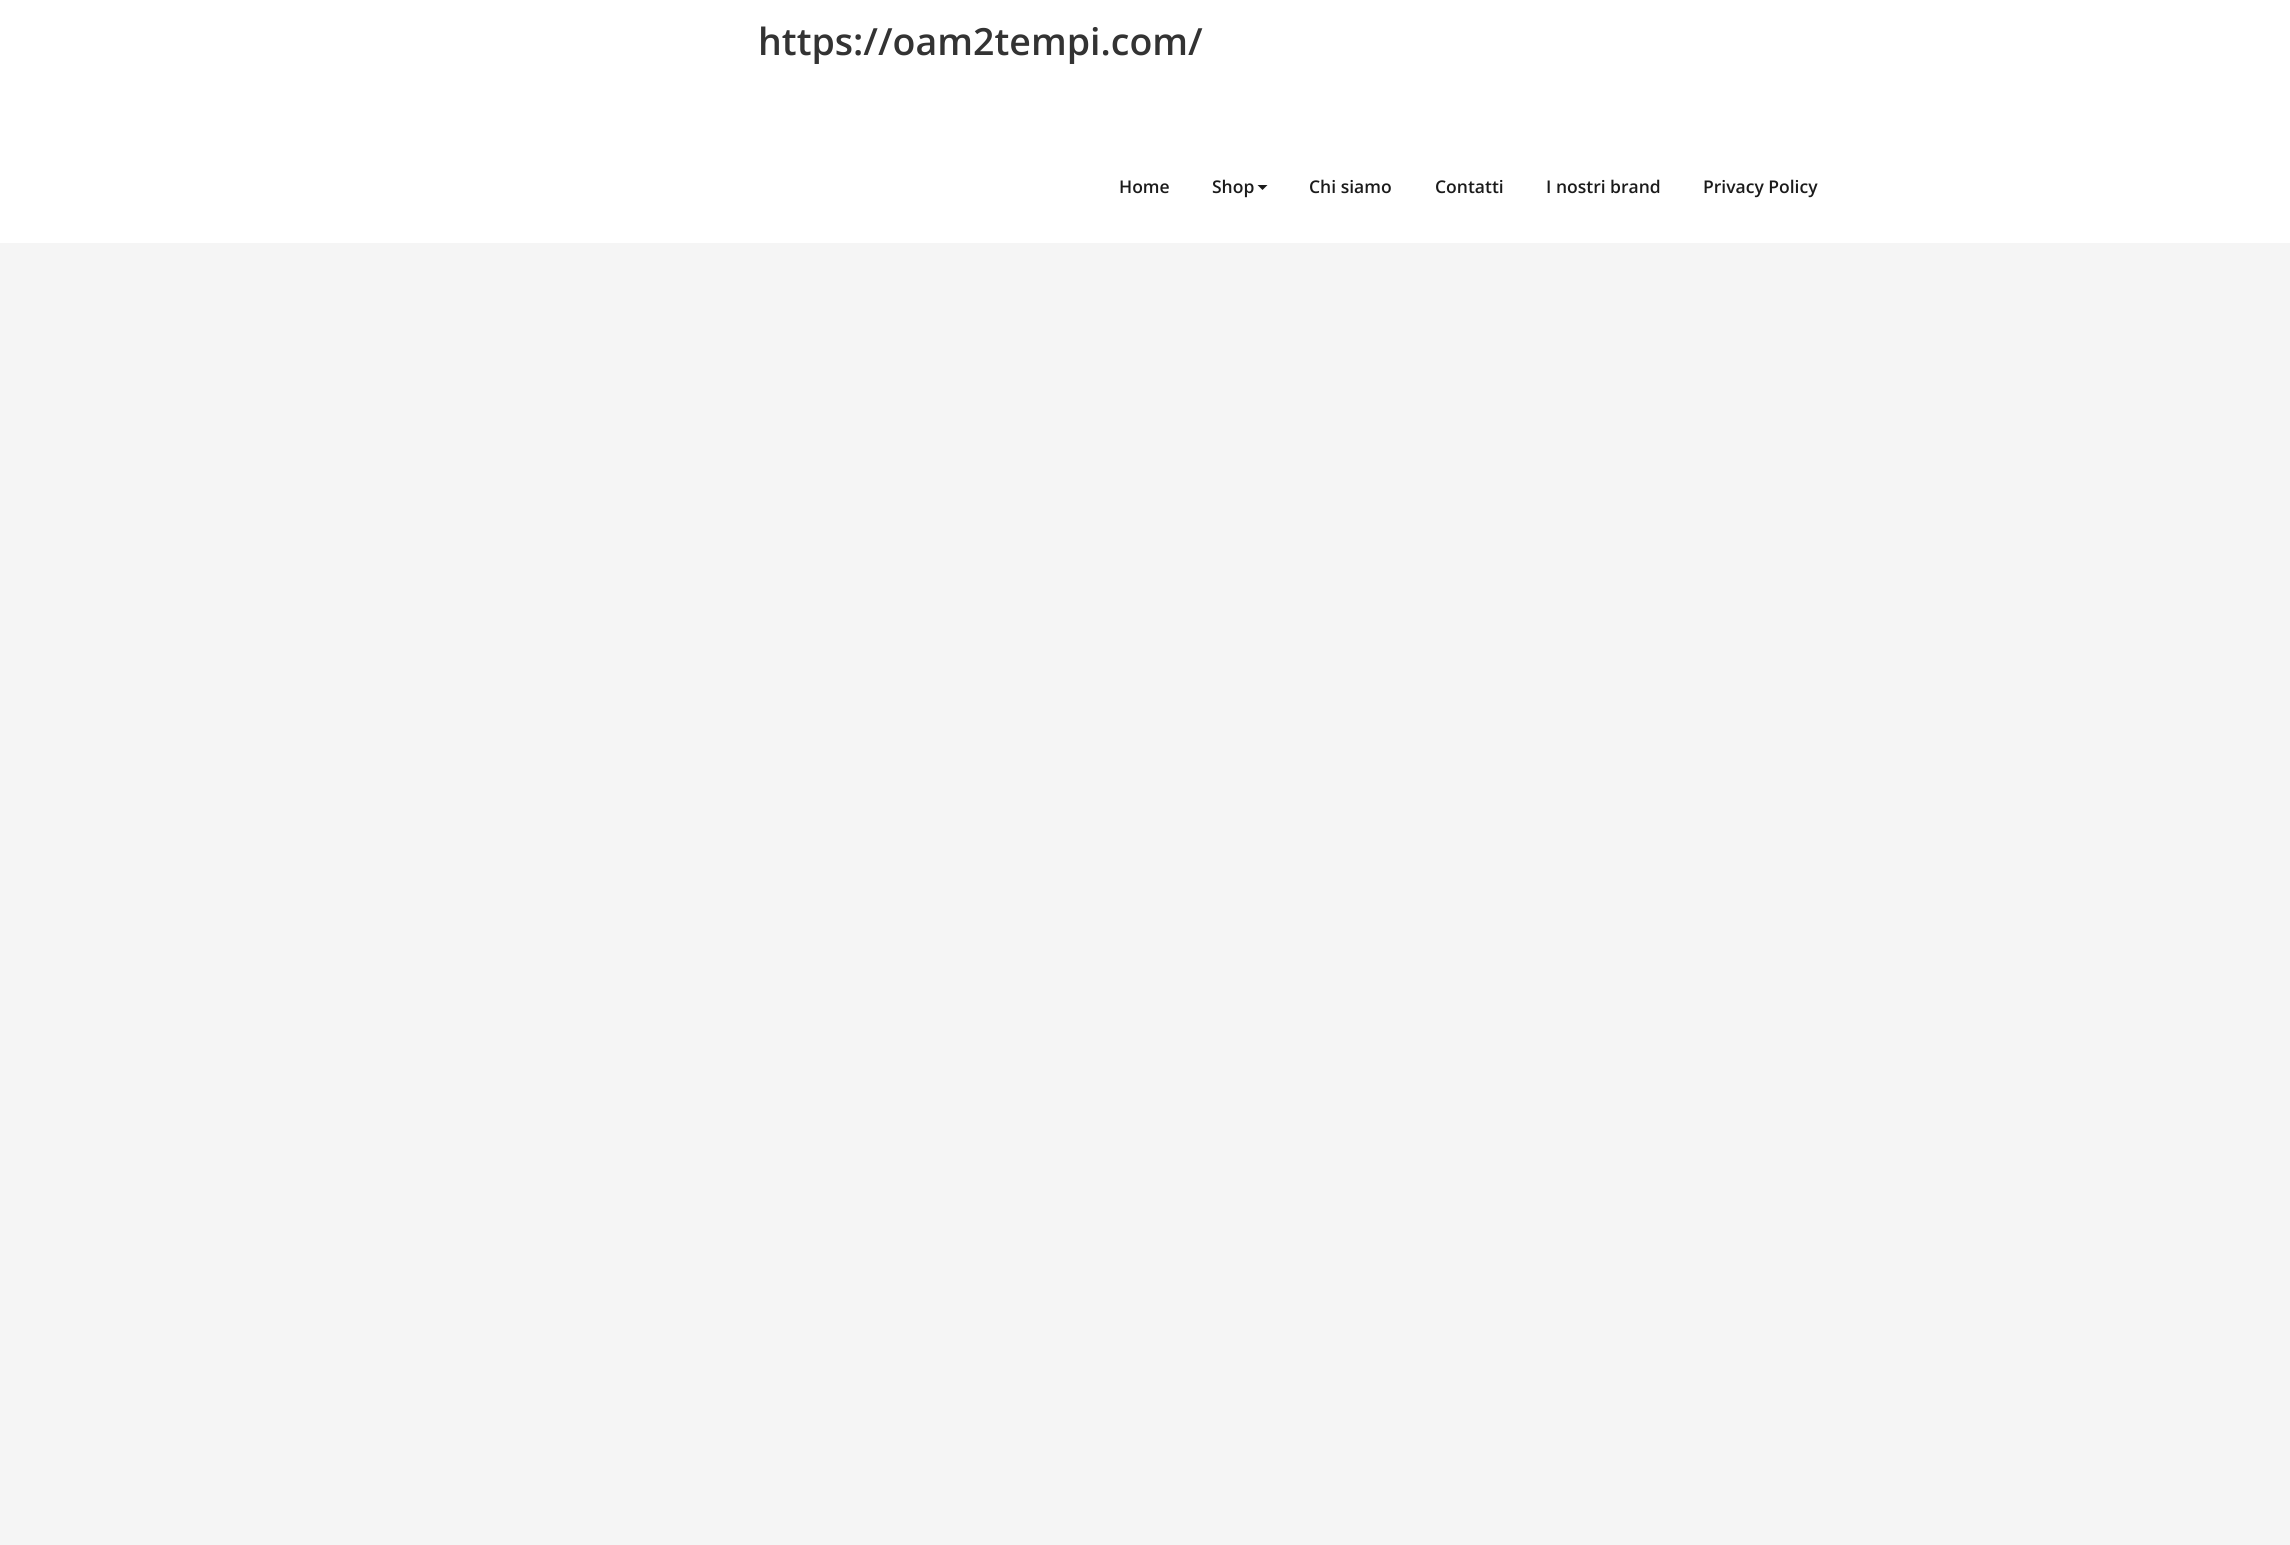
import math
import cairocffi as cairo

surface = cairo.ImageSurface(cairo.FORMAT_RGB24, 2290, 1545)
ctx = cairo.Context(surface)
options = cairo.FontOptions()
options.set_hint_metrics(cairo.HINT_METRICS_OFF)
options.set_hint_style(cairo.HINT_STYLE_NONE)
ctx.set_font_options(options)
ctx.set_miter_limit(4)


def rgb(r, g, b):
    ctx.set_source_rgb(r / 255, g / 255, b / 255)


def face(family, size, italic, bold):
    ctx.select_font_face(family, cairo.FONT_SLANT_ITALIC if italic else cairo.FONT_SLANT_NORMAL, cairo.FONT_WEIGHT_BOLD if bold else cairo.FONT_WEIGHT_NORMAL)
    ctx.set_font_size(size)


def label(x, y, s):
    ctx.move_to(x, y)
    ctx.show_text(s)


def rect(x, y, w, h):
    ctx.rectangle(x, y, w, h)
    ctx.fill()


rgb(245, 245, 245)
ctx.paint()
rgb(255, 255, 255)
rect(0, 0, 2290, 243)
face('Open Sans SemiBold', 37.5, 0, 0)
rgb(51, 51, 51)
label(758, 55, 'https://oam2tempi.com/')
face('Open Sans SemiBold', 17.5, 0, 0)
rgb(27, 27, 27)
label(1119, 193, 'Home')
label(1212, 193, 'Shop')
ctx.new_path()
ctx.move_to(1257.5, 185)
ctx.line_to(1267.5, 185)
ctx.line_to(1262.5, 190)
ctx.close_path()
ctx.fill()
label(1309, 193, 'Chi siamo')
label(1435, 193, 'Contatti')
label(1546, 193, 'I nostri brand')
label(1703, 193, 'Privacy Policy')
surface.write_to_png('render.png')
